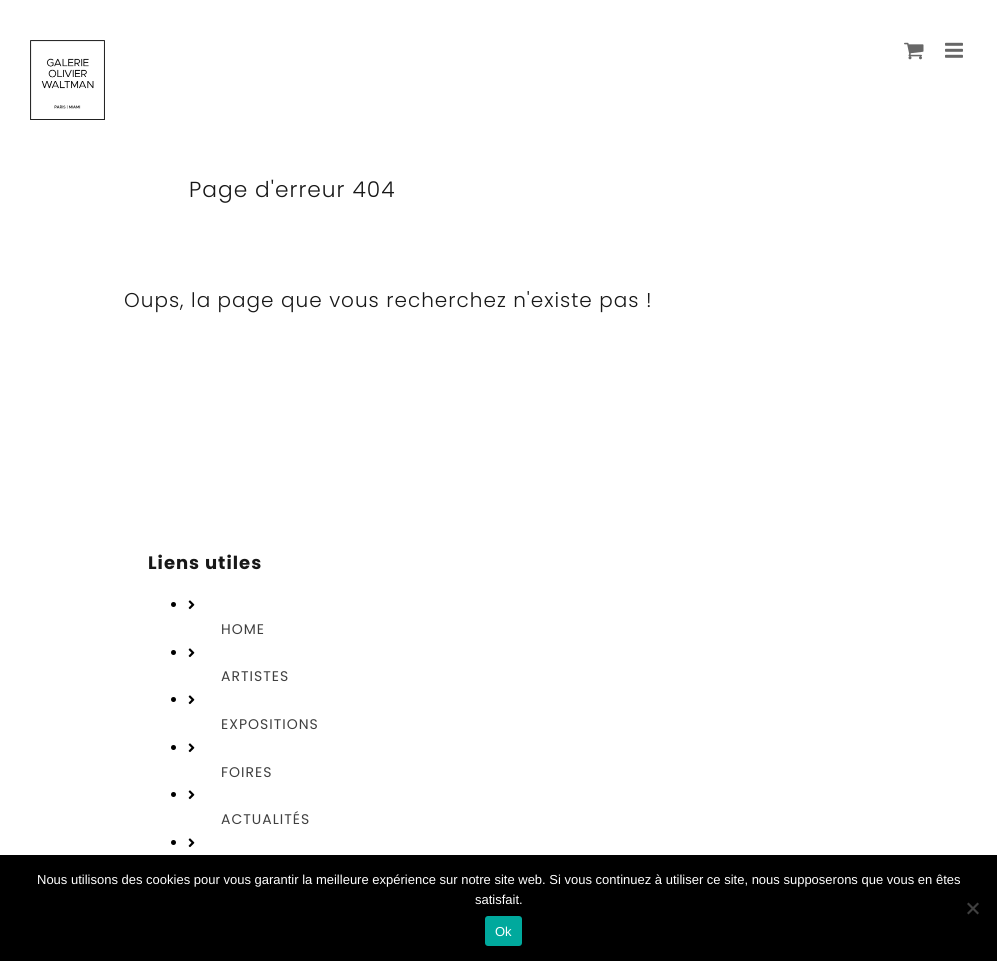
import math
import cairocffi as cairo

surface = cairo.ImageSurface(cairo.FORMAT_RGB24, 997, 961)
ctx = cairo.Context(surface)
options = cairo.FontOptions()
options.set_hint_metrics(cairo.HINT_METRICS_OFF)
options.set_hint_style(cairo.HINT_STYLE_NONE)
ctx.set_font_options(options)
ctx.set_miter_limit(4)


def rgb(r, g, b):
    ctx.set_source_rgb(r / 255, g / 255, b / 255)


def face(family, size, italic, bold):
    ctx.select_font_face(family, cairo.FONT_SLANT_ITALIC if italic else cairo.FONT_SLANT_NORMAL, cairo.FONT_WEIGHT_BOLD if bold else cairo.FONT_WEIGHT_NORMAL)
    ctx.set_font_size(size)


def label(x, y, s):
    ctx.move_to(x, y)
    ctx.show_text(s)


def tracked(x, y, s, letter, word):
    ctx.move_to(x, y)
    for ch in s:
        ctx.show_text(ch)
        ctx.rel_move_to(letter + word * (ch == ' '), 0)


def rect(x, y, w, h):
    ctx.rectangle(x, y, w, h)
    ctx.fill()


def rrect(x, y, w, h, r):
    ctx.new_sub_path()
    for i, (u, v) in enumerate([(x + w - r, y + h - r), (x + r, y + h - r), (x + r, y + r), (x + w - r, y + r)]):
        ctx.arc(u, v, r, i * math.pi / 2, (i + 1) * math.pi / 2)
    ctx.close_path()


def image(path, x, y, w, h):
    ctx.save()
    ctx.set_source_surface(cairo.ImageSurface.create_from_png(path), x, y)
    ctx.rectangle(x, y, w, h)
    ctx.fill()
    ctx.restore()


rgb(255, 255, 255)
ctx.paint()
image('image0.png', 30, 40, 75, 80)
image('image1.png', 904, 42, 20, 18)
image('image2.png', 945, 42, 18, 16)
face('Poppins Light', 21.75, 0, 0)
rgb(24, 24, 24)
tracked(189, 197, 'Page d\'erreur 404', 1, 0)
face('Poppins Light', 20, 0, 0)
tracked(124, 307, 'Oups, la page que vous recherchez n\'existe pas !', 1, 0)
face('Poppins', 18, 0, 1)
tracked(148, 569, 'Liens utiles', 1, 0)
rgb(0, 0, 0)
ctx.new_path()
ctx.arc(173.5, 604.5, 2.5, 0, 2 * math.pi)
ctx.fill()
image('image3.png', 188, 600, 7, 10)
face('Poppins', 14, 0, 0)
rgb(63, 63, 63)
tracked(221, 634, 'HOME', 1, 0)
rgb(0, 0, 0)
ctx.new_path()
ctx.arc(173.5, 652.5, 2.5, 0, 2 * math.pi)
ctx.fill()
image('image3.png', 188, 648, 7, 10)
rgb(63, 63, 63)
tracked(221, 681, 'ARTISTES', 1, 0)
rgb(0, 0, 0)
ctx.new_path()
ctx.arc(173.5, 699.5, 2.5, 0, 2 * math.pi)
ctx.fill()
image('image3.png', 188, 695, 7, 10)
rgb(63, 63, 63)
tracked(221, 729, 'EXPOSITIONS', 1, 0)
rgb(0, 0, 0)
ctx.new_path()
ctx.arc(173.5, 747.5, 2.5, 0, 2 * math.pi)
ctx.fill()
image('image3.png', 188, 743, 7, 10)
rgb(63, 63, 63)
tracked(221, 777, 'FOIRES', 1, 0)
rgb(0, 0, 0)
ctx.new_path()
ctx.arc(173.5, 794.5, 2.5, 0, 2 * math.pi)
ctx.fill()
image('image3.png', 188, 790, 7, 10)
rgb(63, 63, 63)
tracked(221, 824, 'ACTUALITÉS', 1, 0)
rgb(0, 0, 0)
ctx.new_path()
ctx.arc(173.5, 842.5, 2.5, 0, 2 * math.pi)
ctx.fill()
image('image3.png', 188, 838, 7, 10)
rect(0, 855, 997, 106)
face('Liberation Sans', 13, 0, 0)
rgb(255, 255, 255)
label(37, 884, 'Nous utilisons des cookies pour vous garantir la meilleure expérience sur notre site web. Si vous continuez à utiliser ce site, nous supposerons que vous en êtes')
label(475, 904, 'satisfait.')
rgb(64, 64, 64)
ctx.new_path()
ctx.move_to(977.5, 902.5)
ctx.line_to(979, 904)
ctx.line_to(968.5, 914.5)
ctx.line_to(967, 913)
ctx.close_path()
ctx.fill()
ctx.new_path()
ctx.move_to(967, 904)
ctx.line_to(968.5, 902.5)
ctx.line_to(979, 913)
ctx.line_to(977.5, 914.5)
ctx.close_path()
ctx.fill()
rgb(0, 169, 157)
rrect(485, 916, 37, 30, 3)
ctx.fill()
rgb(255, 255, 255)
label(495, 936, 'Ok')
surface.write_to_png('render.png')
